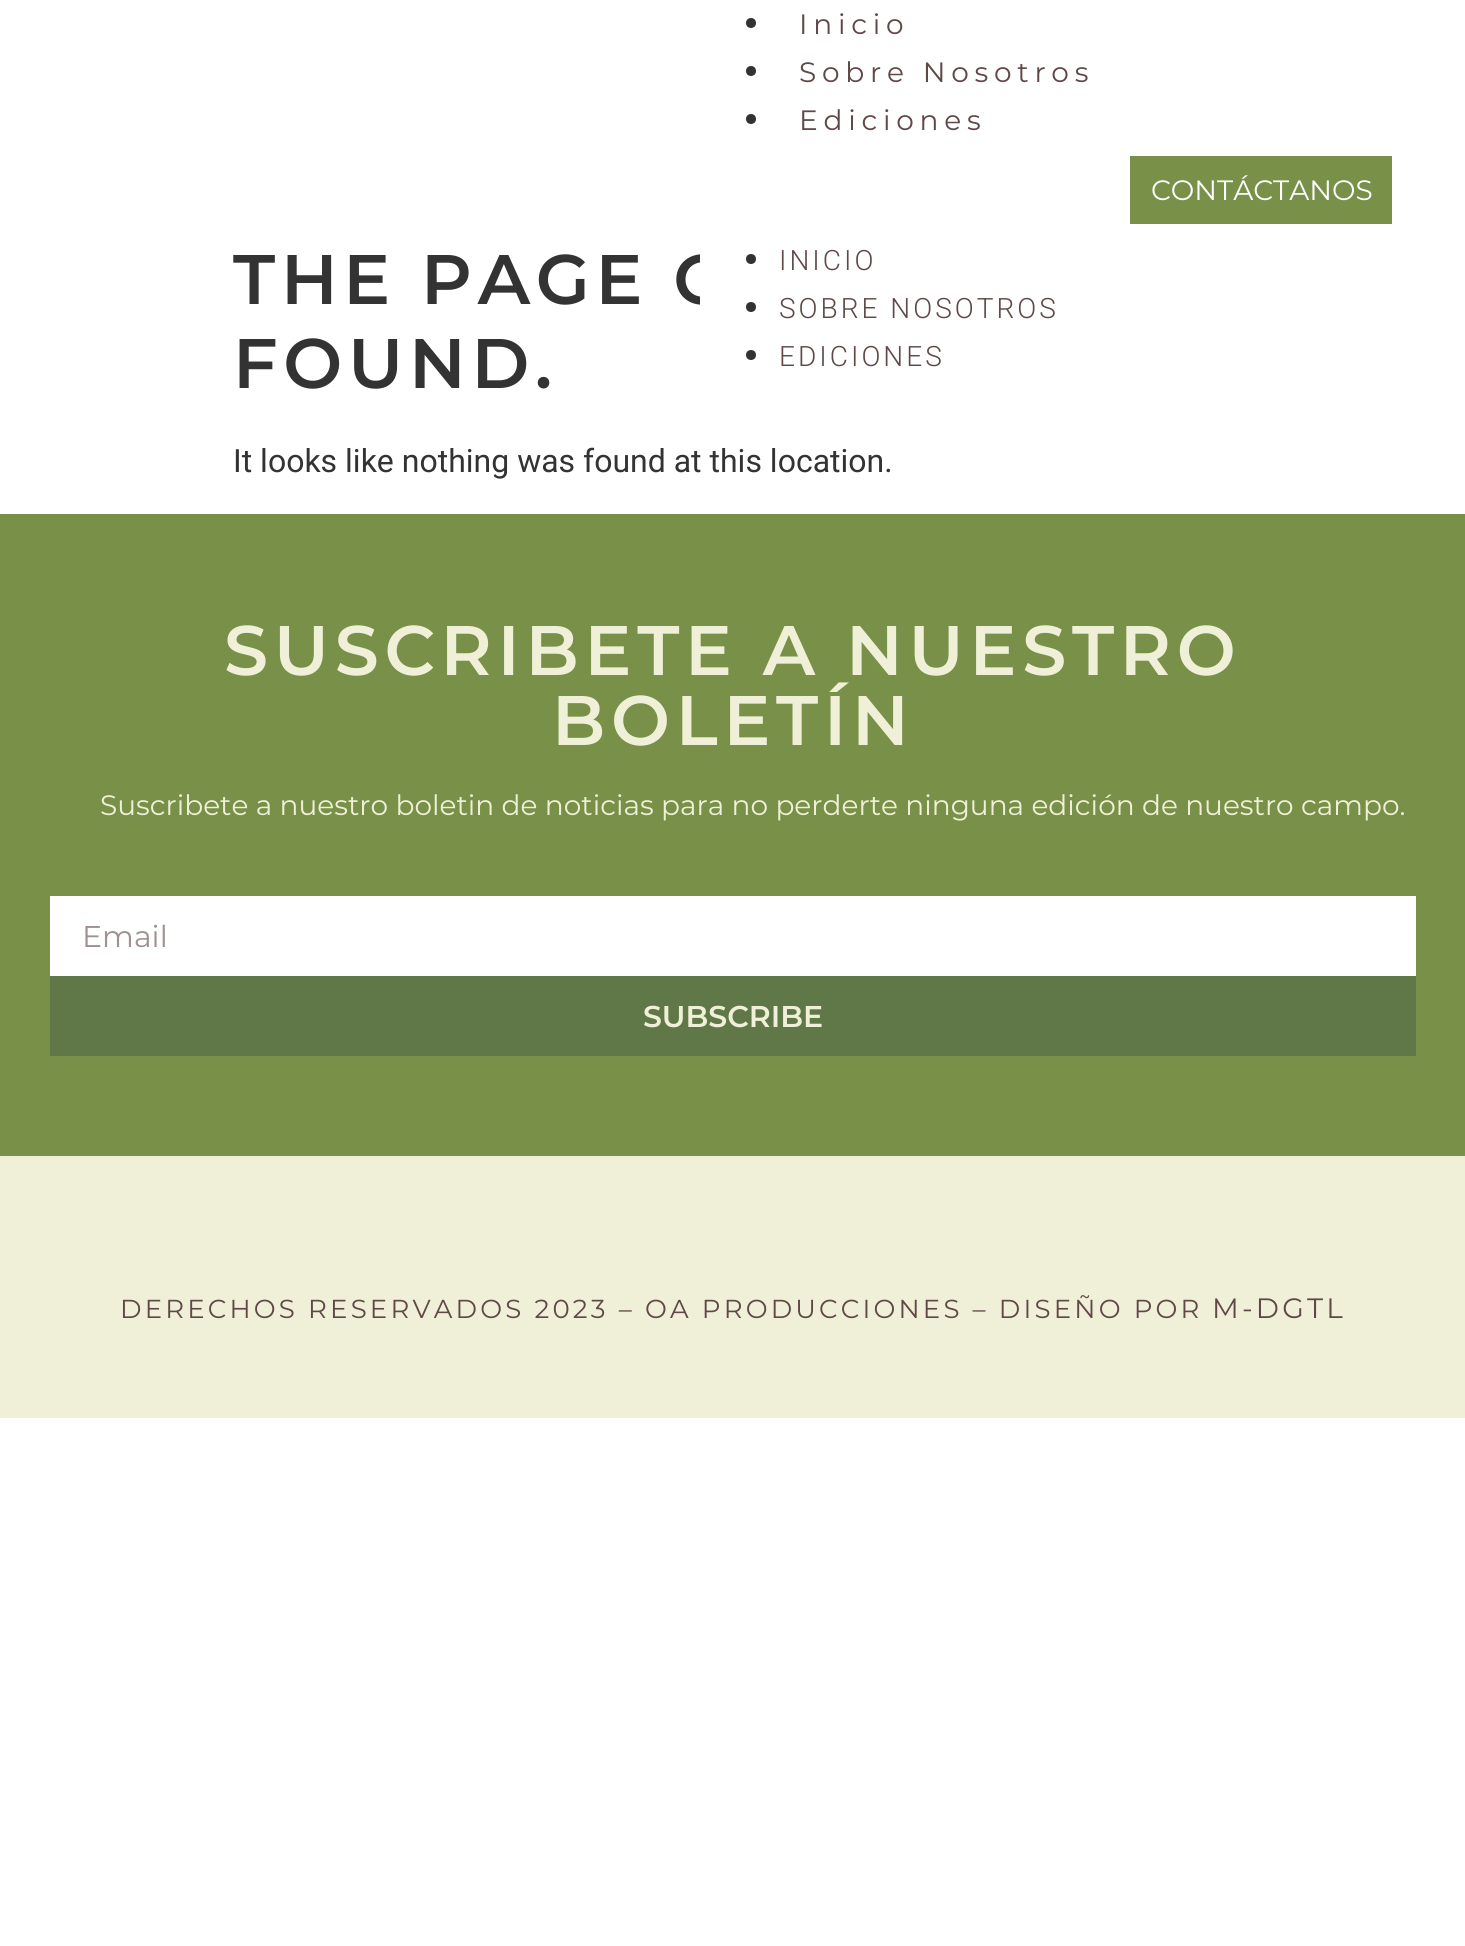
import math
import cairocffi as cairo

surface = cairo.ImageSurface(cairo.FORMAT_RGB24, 1465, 1946)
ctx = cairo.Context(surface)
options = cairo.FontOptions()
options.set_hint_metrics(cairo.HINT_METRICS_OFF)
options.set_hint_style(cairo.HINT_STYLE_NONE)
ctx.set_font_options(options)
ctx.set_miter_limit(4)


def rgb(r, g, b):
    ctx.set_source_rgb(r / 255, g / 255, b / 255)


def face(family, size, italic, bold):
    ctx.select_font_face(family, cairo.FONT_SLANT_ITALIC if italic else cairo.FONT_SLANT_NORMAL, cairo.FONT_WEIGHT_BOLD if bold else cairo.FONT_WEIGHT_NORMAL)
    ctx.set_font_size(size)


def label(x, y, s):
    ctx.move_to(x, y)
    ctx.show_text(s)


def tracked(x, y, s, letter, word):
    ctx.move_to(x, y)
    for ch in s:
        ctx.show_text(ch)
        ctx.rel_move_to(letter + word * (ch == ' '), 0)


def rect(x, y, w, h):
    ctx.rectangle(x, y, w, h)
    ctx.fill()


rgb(255, 255, 255)
ctx.paint()
face('Montserrat SemiBold', 70, 0, 0)
rgb(51, 51, 51)
tracked(233, 304, 'THE PAGE C', 5.75, 0)
tracked(233, 388, 'FOUND.', 5.75, 0)
face('Roboto', 32, 0, 0)
label(233, 472, 'It looks like nothing was found at this location.')
ctx.new_path()
ctx.arc(751, 23, 5, 0, 2 * math.pi)
ctx.fill()
face('Montserrat', 28, 0, 0)
rgb(96, 72, 72)
tracked(799, 34, 'Inicio', 5.75, 0)
rgb(51, 51, 51)
ctx.new_path()
ctx.arc(751, 71, 5, 0, 2 * math.pi)
ctx.fill()
rgb(96, 72, 72)
tracked(799, 82, 'Sobre Nosotros', 5.75, 0)
rgb(51, 51, 51)
ctx.new_path()
ctx.arc(751, 119, 5, 0, 2 * math.pi)
ctx.fill()
rgb(96, 72, 72)
tracked(799, 130, 'Ediciones', 5.75, 0)
rgb(255, 255, 255)
rect(700, 254, 23, 51)
rgb(51, 51, 51)
ctx.new_path()
ctx.arc(751, 259, 5, 0, 2 * math.pi)
ctx.fill()
face('Roboto Light', 28, 0, 0)
rgb(96, 72, 72)
tracked(779, 270, 'INICIO', 3, 0)
rgb(51, 51, 51)
ctx.new_path()
ctx.arc(751, 307, 5, 0, 2 * math.pi)
ctx.fill()
rgb(96, 72, 72)
tracked(779, 318, 'SOBRE NOSOTROS', 3, 0)
rgb(51, 51, 51)
ctx.new_path()
ctx.arc(751, 355, 5, 0, 2 * math.pi)
ctx.fill()
rgb(96, 72, 72)
tracked(779, 366, 'EDICIONES', 3, 0)
rgb(120, 144, 72)
rect(1130, 156, 262, 68)
face('Montserrat', 28, 0, 0)
rgb(255, 255, 255)
label(1151, 200, 'CONTÁCTANOS')
rgb(120, 144, 72)
rect(0, 514, 1465, 642)
face('Montserrat SemiBold', 70, 0, 0)
rgb(240, 240, 216)
tracked(224, 675, 'SUSCRIBETE A NUESTRO', 5.75, 0)
tracked(552, 745, 'BOLETÍN', 5.75, 0)
face('Montserrat', 28, 0, 0)
label(100, 815, 'Suscribete a nuestro boletin de noticias para no perderte ninguna edición de nuestro campo.')
rgb(255, 255, 255)
rect(50, 896, 1366, 80)
face('Montserrat', 30, 0, 0)
rgb(160, 145, 145)
label(82, 947, 'Email')
rgb(96, 120, 72)
rect(50, 976, 1366, 80)
face('Montserrat SemiBold', 30, 0, 0)
rgb(240, 240, 216)
label(643, 1027, 'SUBSCRIBE')
rect(0, 1156, 1465, 262)
face('Montserrat', 26, 0, 0)
rgb(96, 72, 72)
tracked(120, 1318, 'DERECHOS RESERVADOS 2023 – OA PRODUCCIONES – DISEÑO POR', 3.2, 0)
face('Montserrat', 28, 0, 0)
tracked(1212, 1318, 'M-DGTL', 3.2, 0)
surface.write_to_png('render.png')
